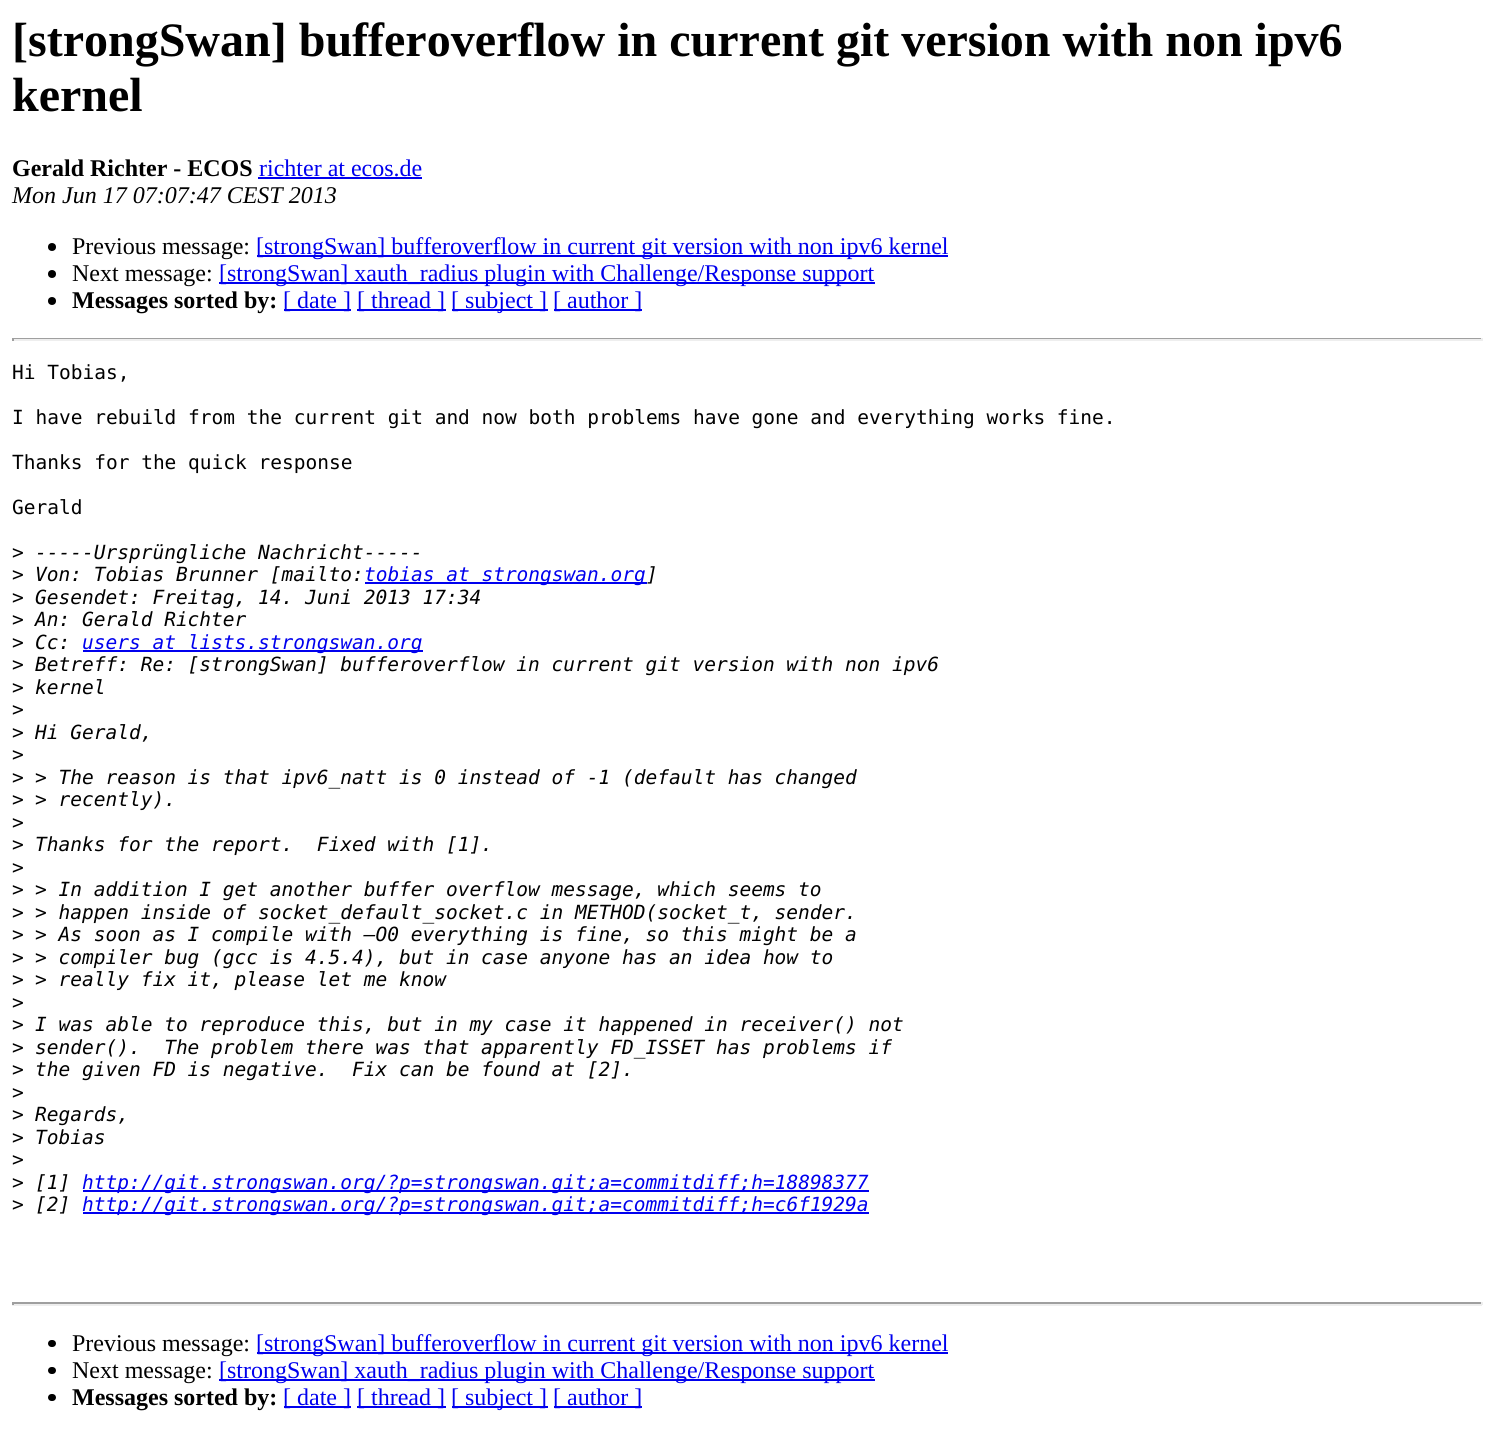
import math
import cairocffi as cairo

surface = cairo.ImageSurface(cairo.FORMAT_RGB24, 1494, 1432)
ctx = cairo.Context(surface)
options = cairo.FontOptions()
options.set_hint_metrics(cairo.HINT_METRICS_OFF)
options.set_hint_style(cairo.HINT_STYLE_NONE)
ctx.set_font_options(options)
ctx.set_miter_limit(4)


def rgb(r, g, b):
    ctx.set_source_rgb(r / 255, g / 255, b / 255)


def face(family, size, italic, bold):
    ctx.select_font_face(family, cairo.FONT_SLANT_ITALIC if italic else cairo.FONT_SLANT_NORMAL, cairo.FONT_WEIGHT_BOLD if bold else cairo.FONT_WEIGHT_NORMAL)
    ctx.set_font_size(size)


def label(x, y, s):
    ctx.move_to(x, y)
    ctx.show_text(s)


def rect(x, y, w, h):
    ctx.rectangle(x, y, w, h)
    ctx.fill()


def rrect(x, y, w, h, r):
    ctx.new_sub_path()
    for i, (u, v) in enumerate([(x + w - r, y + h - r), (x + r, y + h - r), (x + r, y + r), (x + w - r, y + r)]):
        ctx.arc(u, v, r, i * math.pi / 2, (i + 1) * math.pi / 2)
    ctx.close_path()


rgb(255, 255, 255)
ctx.paint()
face('Liberation Serif', 48, 0, 1)
rgb(0, 0, 0)
label(12, 56, '[strongSwan] bufferoverflow in current git version with non ipv6')
label(12, 111, 'kernel')
face('Liberation Serif', 24, 0, 1)
label(12, 176, 'Gerald Richter - ECOS')
face('Liberation Serif', 24, 0, 0)
rgb(0, 0, 238)
label(259, 176, 'richter at ecos.de')
rect(258, 177, 164, 2)
face('Liberation Serif', 24, 1, 0)
rgb(0, 0, 0)
label(12, 203, 'Mon Jun 17 07:07:47 CEST 2013')
ctx.new_path()
ctx.arc(52, 247, 4, 0, 2 * math.pi)
ctx.fill()
face('Liberation Serif', 24, 0, 0)
label(72, 254, 'Previous message:')
rgb(0, 0, 238)
rect(257, 255, 691, 2)
label(256, 254, '[strongSwan] bufferoverflow in current git version with non ipv6 kernel')
rgb(0, 0, 0)
ctx.new_path()
ctx.arc(52, 274, 4, 0, 2 * math.pi)
ctx.fill()
label(72, 281, 'Next message:')
rgb(0, 0, 238)
rect(219, 282, 656, 2)
label(219, 281, '[strongSwan] xauth_radius plugin with Challenge/Response support')
rgb(0, 0, 0)
ctx.new_path()
ctx.arc(52, 301, 4, 0, 2 * math.pi)
ctx.fill()
face('Liberation Serif', 24, 0, 1)
label(72, 308, 'Messages sorted by:')
rgb(0, 0, 238)
rect(284, 309, 67, 2)
face('Liberation Serif', 24, 0, 0)
label(283, 308, '[ date ]')
rect(357, 309, 89, 2)
label(357, 308, '[ thread ]')
rect(452, 309, 96, 2)
label(451, 308, '[ subject ]')
rect(554, 309, 88, 2)
label(553, 308, '[ author ]')
rgb(159, 159, 159)
rect(12, 338, 1470, 1)
rgb(238, 238, 238)
rect(1481, 338, 2, 3)
rect(12, 339, 1470, 2)
rgb(159, 159, 159)
rect(12, 338, 2, 3)
face('DejaVu Sans Mono', 19.5, 0, 0)
rgb(0, 0, 0)
label(12, 379, 'Hi Tobias,')
label(12, 424, 'I have rebuild from the current git and now both problems have gone and everything works fine.')
label(12, 469, 'Thanks for the quick response')
label(12, 514, 'Gerald')
label(12, 559, '>')
face('DejaVu Sans Mono', 19.5, 1, 0)
label(35, 559, '-----Ursprüngliche Nachricht-----')
face('DejaVu Sans Mono', 19.5, 0, 0)
label(12, 581, '>')
face('DejaVu Sans Mono', 19.5, 1, 0)
label(35, 581, 'Von: Tobias Brunner [mailto:')
rgb(0, 0, 238)
rect(365, 582, 282, 2)
label(364, 581, 'tobias at strongswan.org')
rgb(0, 0, 0)
label(646, 581, ']')
face('DejaVu Sans Mono', 19.5, 0, 0)
label(12, 604, '>')
face('DejaVu Sans Mono', 19.5, 1, 0)
label(35, 604, 'Gesendet: Freitag, 14. Juni 2013 17:34')
face('DejaVu Sans Mono', 19.5, 0, 0)
label(12, 626, '>')
face('DejaVu Sans Mono', 19.5, 1, 0)
label(35, 626, 'An: Gerald Richter')
face('DejaVu Sans Mono', 19.5, 0, 0)
label(12, 649, '>')
face('DejaVu Sans Mono', 19.5, 1, 0)
label(35, 649, 'Cc:')
rgb(0, 0, 238)
rect(83, 650, 340, 2)
label(82, 649, 'users at lists.strongswan.org')
face('DejaVu Sans Mono', 19.5, 0, 0)
rgb(0, 0, 0)
label(12, 671, '>')
face('DejaVu Sans Mono', 19.5, 1, 0)
label(35, 671, 'Betreff: Re: [strongSwan] bufferoverflow in current git version with non ipv6')
face('DejaVu Sans Mono', 19.5, 0, 0)
label(12, 694, '>')
face('DejaVu Sans Mono', 19.5, 1, 0)
label(35, 694, 'kernel')
face('DejaVu Sans Mono', 19.5, 0, 0)
label(12, 716, '>')
label(12, 739, '>')
face('DejaVu Sans Mono', 19.5, 1, 0)
label(35, 739, 'Hi Gerald,')
face('DejaVu Sans Mono', 19.5, 0, 0)
label(12, 761, '>')
label(12, 784, '>')
face('DejaVu Sans Mono', 19.5, 1, 0)
label(35, 784, '> The reason is that ipv6_natt is 0 instead of -1 (default has changed')
face('DejaVu Sans Mono', 19.5, 0, 0)
label(12, 806, '>')
face('DejaVu Sans Mono', 19.5, 1, 0)
label(35, 806, '> recently).')
face('DejaVu Sans Mono', 19.5, 0, 0)
label(12, 829, '>')
label(12, 851, '>')
face('DejaVu Sans Mono', 19.5, 1, 0)
label(35, 851, 'Thanks for the report.  Fixed with [1].')
face('DejaVu Sans Mono', 19.5, 0, 0)
label(12, 874, '>')
label(12, 896, '>')
face('DejaVu Sans Mono', 19.5, 1, 0)
label(35, 896, '> In addition I get another buffer overflow message, which seems to')
face('DejaVu Sans Mono', 19.5, 0, 0)
label(12, 919, '>')
face('DejaVu Sans Mono', 19.5, 1, 0)
label(35, 919, '> happen inside of socket_default_socket.c in METHOD(socket_t, sender.')
face('DejaVu Sans Mono', 19.5, 0, 0)
label(12, 941, '>')
face('DejaVu Sans Mono', 19.5, 1, 0)
label(35, 941, '> As soon as I compile with –O0 everything is fine, so this might be a')
face('DejaVu Sans Mono', 19.5, 0, 0)
label(12, 964, '>')
face('DejaVu Sans Mono', 19.5, 1, 0)
label(35, 964, '> compiler bug (gcc is 4.5.4), but in case anyone has an idea how to')
face('DejaVu Sans Mono', 19.5, 0, 0)
label(12, 986, '>')
face('DejaVu Sans Mono', 19.5, 1, 0)
label(35, 986, '> really fix it, please let me know')
face('DejaVu Sans Mono', 19.5, 0, 0)
label(12, 1009, '>')
label(12, 1031, '>')
face('DejaVu Sans Mono', 19.5, 1, 0)
label(35, 1031, 'I was able to reproduce this, but in my case it happened in receiver() not')
face('DejaVu Sans Mono', 19.5, 0, 0)
label(12, 1054, '>')
face('DejaVu Sans Mono', 19.5, 1, 0)
label(35, 1054, 'sender().  The problem there was that apparently FD_ISSET has problems if')
face('DejaVu Sans Mono', 19.5, 0, 0)
label(12, 1076, '>')
face('DejaVu Sans Mono', 19.5, 1, 0)
label(35, 1076, 'the given FD is negative.  Fix can be found at [2].')
face('DejaVu Sans Mono', 19.5, 0, 0)
label(12, 1099, '>')
label(12, 1121, '>')
face('DejaVu Sans Mono', 19.5, 1, 0)
label(35, 1121, 'Regards,')
face('DejaVu Sans Mono', 19.5, 0, 0)
label(12, 1144, '>')
face('DejaVu Sans Mono', 19.5, 1, 0)
label(35, 1144, 'Tobias')
face('DejaVu Sans Mono', 19.5, 0, 0)
label(12, 1166, '>')
label(12, 1189, '>')
face('DejaVu Sans Mono', 19.5, 1, 0)
label(35, 1189, '[1]')
rgb(0, 0, 238)
rect(83, 1190, 786, 2)
label(82, 1189, 'http://git.strongswan.org/?p=strongswan.git;a=commitdiff;h=18898377')
face('DejaVu Sans Mono', 19.5, 0, 0)
rgb(0, 0, 0)
label(12, 1211, '>')
face('DejaVu Sans Mono', 19.5, 1, 0)
label(35, 1211, '[2]')
rgb(0, 0, 238)
rect(83, 1212, 786, 2)
label(82, 1211, 'http://git.strongswan.org/?p=strongswan.git;a=commitdiff;h=c6f1929a')
rgb(159, 159, 159)
rect(12, 1302, 1470, 2)
rgb(238, 238, 238)
rect(1481, 1302, 2, 3)
rect(12, 1304, 1470, 2)
rgb(159, 159, 159)
rect(12, 1302, 2, 3)
rgb(0, 0, 0)
rrect(48, 1340, 8, 7, 3.5)
ctx.fill()
face('Liberation Serif', 24, 0, 0)
label(72, 1351, 'Previous message:')
rgb(0, 0, 238)
rect(257, 1352, 691, 2)
label(256, 1351, '[strongSwan] bufferoverflow in current git version with non ipv6 kernel')
rgb(0, 0, 0)
rrect(48, 1367, 8, 7, 3.5)
ctx.fill()
label(72, 1378, 'Next message:')
rgb(0, 0, 238)
rect(219, 1379, 656, 2)
label(219, 1378, '[strongSwan] xauth_radius plugin with Challenge/Response support')
rgb(0, 0, 0)
rrect(48, 1394, 8, 7, 3.5)
ctx.fill()
face('Liberation Serif', 24, 0, 1)
label(72, 1405, 'Messages sorted by:')
rgb(0, 0, 238)
rect(284, 1406, 67, 2)
face('Liberation Serif', 24, 0, 0)
label(283, 1405, '[ date ]')
rect(357, 1406, 89, 2)
label(357, 1405, '[ thread ]')
rect(452, 1406, 96, 2)
label(451, 1405, '[ subject ]')
rect(554, 1406, 88, 2)
label(553, 1405, '[ author ]')
surface.write_to_png('render.png')
